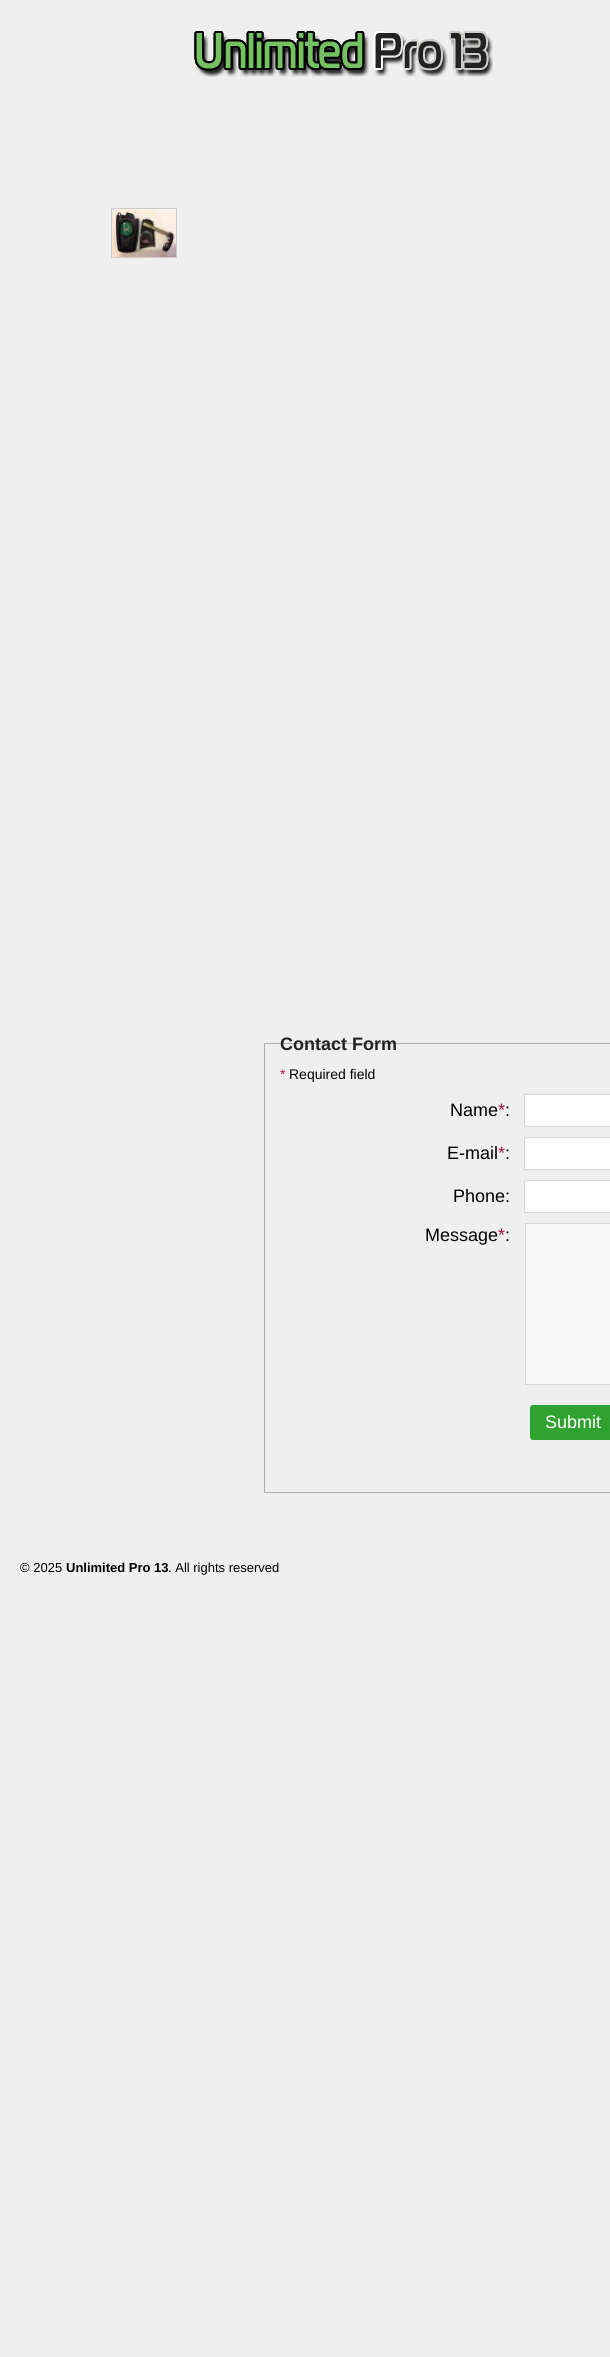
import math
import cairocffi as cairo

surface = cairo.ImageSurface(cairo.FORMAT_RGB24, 610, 2357)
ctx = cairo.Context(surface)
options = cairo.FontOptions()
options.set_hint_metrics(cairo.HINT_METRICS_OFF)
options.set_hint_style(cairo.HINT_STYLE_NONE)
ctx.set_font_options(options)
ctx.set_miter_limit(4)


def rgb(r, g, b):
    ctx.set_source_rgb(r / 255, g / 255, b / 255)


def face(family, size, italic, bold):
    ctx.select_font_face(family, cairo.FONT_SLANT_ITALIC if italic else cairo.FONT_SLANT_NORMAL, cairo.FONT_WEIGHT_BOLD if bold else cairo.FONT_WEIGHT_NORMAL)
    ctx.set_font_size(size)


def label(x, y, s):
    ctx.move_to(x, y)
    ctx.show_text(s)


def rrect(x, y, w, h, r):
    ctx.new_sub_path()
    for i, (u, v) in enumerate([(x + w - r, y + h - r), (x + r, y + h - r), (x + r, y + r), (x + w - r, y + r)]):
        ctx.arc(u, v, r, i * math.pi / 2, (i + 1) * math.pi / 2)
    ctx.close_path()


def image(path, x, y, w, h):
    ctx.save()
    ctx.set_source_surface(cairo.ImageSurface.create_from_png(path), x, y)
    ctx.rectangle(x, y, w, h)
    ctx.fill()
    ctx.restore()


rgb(239, 239, 239)
ctx.paint()
image('image0.png', 194, 31, 299, 46)
image('image1.png', 194, 31, 299, 46)
ctx.rectangle(111.5, 208.5, 65, 49)
rgb(204, 204, 204)
ctx.set_line_width(1)
ctx.stroke()
image('image2.png', 112, 209, 64, 48)
ctx.rectangle(264.5, 1043.5, 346, 449)
rgb(174, 174, 174)
ctx.stroke()
face('Liberation Sans', 18, 0, 1)
rgb(34, 34, 34)
label(280, 1050, 'Contact Form')
face('Liberation Sans', 14, 0, 0)
rgb(177, 18, 62)
label(280, 1079, '*')
rgb(0, 0, 0)
label(289, 1079, 'Required field')
face('Liberation Sans', 18, 0, 0)
label(450, 1116, 'Name')
rgb(177, 18, 62)
label(498, 1116, '*')
rgb(0, 0, 0)
label(505, 1116, ':')
rgb(255, 255, 255)
ctx.rectangle(524.5, 1094.5, 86, 32)
ctx.fill_preserve()
rgb(214, 214, 214)
ctx.stroke()
rgb(0, 0, 0)
label(447, 1159, 'E-mail')
rgb(177, 18, 62)
label(498, 1159, '*')
rgb(0, 0, 0)
label(505, 1159, ':')
rgb(255, 255, 255)
ctx.rectangle(524.5, 1137.5, 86, 32)
ctx.fill_preserve()
rgb(214, 214, 214)
ctx.stroke()
rgb(0, 0, 0)
label(453, 1202, 'Phone:')
rgb(255, 255, 255)
ctx.rectangle(524.5, 1180.5, 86, 32)
ctx.fill_preserve()
rgb(214, 214, 214)
ctx.stroke()
rgb(0, 0, 0)
label(425, 1241, 'Message')
rgb(177, 18, 62)
label(498, 1241, '*')
rgb(0, 0, 0)
label(505, 1241, ':')
rgb(247, 247, 247)
ctx.rectangle(525.5, 1223.5, 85, 161)
ctx.fill_preserve()
rgb(214, 214, 214)
ctx.stroke()
rgb(47, 162, 47)
rrect(530, 1405, 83, 35, 3)
ctx.fill()
rgb(255, 255, 255)
label(545, 1428, 'Submit')
face('Liberation Sans', 13, 0, 0)
rgb(0, 0, 0)
label(20, 1572, '© 2025')
face('Liberation Sans', 13, 0, 1)
label(66, 1572, 'Unlimited Pro 13')
face('Liberation Sans', 13, 0, 0)
label(168, 1572, '. All rights reserved')
surface.write_to_png('render.png')
